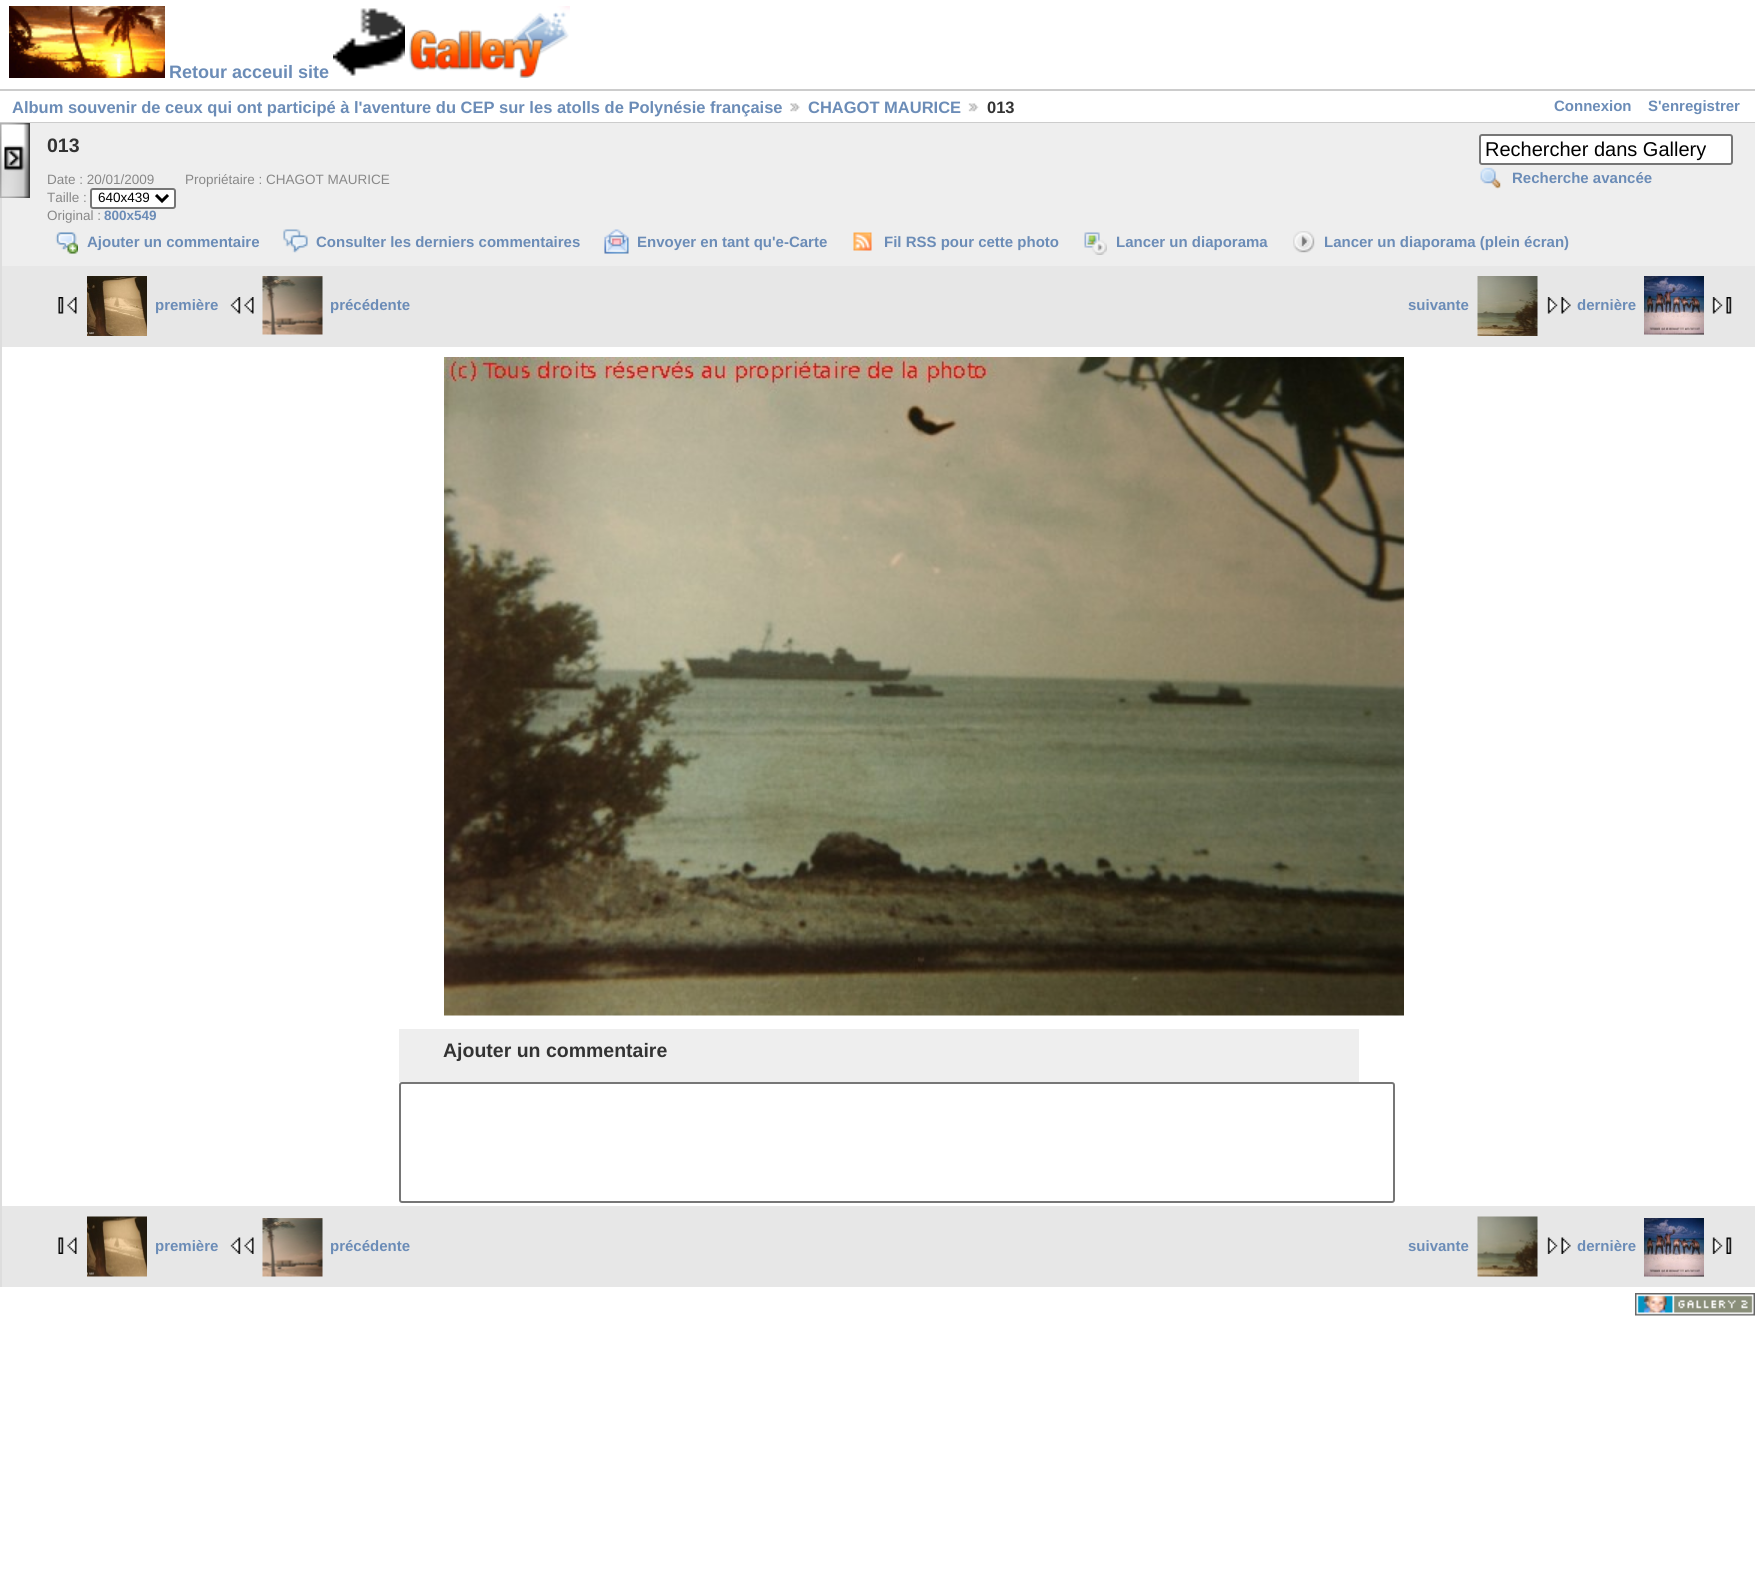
import math
import cairocffi as cairo

surface = cairo.ImageSurface(cairo.FORMAT_RGB24, 1755, 1588)
ctx = cairo.Context(surface)
options = cairo.FontOptions()
options.set_hint_metrics(cairo.HINT_METRICS_OFF)
options.set_hint_style(cairo.HINT_STYLE_NONE)
ctx.set_font_options(options)
ctx.set_miter_limit(4)


def rgb(r, g, b):
    ctx.set_source_rgb(r / 255, g / 255, b / 255)


def face(family, size, italic, bold):
    ctx.select_font_face(family, cairo.FONT_SLANT_ITALIC if italic else cairo.FONT_SLANT_NORMAL, cairo.FONT_WEIGHT_BOLD if bold else cairo.FONT_WEIGHT_NORMAL)
    ctx.set_font_size(size)


def label(x, y, s):
    ctx.move_to(x, y)
    ctx.show_text(s)


def rect(x, y, w, h):
    ctx.rectangle(x, y, w, h)
    ctx.fill()


def rrect(x, y, w, h, r):
    ctx.new_sub_path()
    for i, (u, v) in enumerate([(x + w - r, y + h - r), (x + r, y + h - r), (x + r, y + r), (x + w - r, y + r)]):
        ctx.arc(u, v, r, i * math.pi / 2, (i + 1) * math.pi / 2)
    ctx.close_path()


def image(path, x, y, w, h):
    ctx.save()
    ctx.set_source_surface(cairo.ImageSurface.create_from_png(path), x, y)
    ctx.rectangle(x, y, w, h)
    ctx.fill()
    ctx.restore()


rgb(255, 255, 255)
ctx.paint()
image('image0.png', 9, 6, 156, 72)
face('Liberation Sans', 18, 0, 1)
rgb(107, 140, 183)
label(169, 78, 'Retour acceuil site')
image('image1.png', 333, 8, 72, 68)
image('image2.png', 409, 6, 161, 72)
rgb(204, 204, 204)
rect(0, 89, 1755, 2)
rect(0, 122, 1755, 1)
face('Liberation Sans', 16.5, 0, 1)
rgb(107, 140, 183)
label(12, 113, 'Album souvenir de ceux qui ont participé à l\'aventure du CEP sur les atolls de Polynésie française')
image('image3.png', 790, 103, 10, 9)
label(808, 113, 'CHAGOT MAURICE')
image('image4.png', 968, 103, 11, 9)
rgb(51, 51, 51)
label(987, 113, '013')
face('Liberation Sans', 15, 0, 1)
rgb(107, 140, 183)
label(1554, 111, 'Connexion')
label(1648, 111, 'S\'enregistrer')
rgb(238, 238, 238)
rect(2, 123, 1753, 143)
image('image5.png', 0, 123, 30, 75)
rgb(221, 221, 221)
rect(0, 198, 2, 1089)
face('Liberation Sans', 19.5, 0, 1)
rgb(51, 51, 51)
label(47, 152, '013')
rgb(255, 255, 255)
rrect(1480, 135, 252, 29, 2)
ctx.fill_preserve()
rgb(118, 118, 118)
ctx.stroke()
face('Liberation Sans', 20, 0, 0)
rgb(0, 0, 0)
label(1485, 156, 'Rechercher dans Gallery')
image('image6.png', 1480, 167, 21, 22)
face('Liberation Sans', 15, 0, 1)
rgb(107, 140, 183)
label(1512, 183, 'Recherche avancée')
face('Liberation Sans', 13.5, 0, 0)
rgb(136, 136, 136)
label(47, 184, 'Date : 20/01/2009')
label(185, 184, 'Propriétaire : CHAGOT MAURICE')
label(47, 202, 'Taille :')
rgb(255, 255, 255)
rrect(91, 189, 84, 19, 2)
ctx.fill_preserve()
rgb(118, 118, 118)
ctx.stroke()
ctx.new_path()
ctx.move_to(156, 195)
ctx.line_to(162, 201)
ctx.line_to(168, 195)
rgb(0, 0, 0)
ctx.set_line_width(3)
ctx.stroke()
label(98, 202, '640x439')
rgb(136, 136, 136)
label(47, 220, 'Original :')
face('Liberation Sans', 13.5, 0, 1)
rgb(107, 140, 183)
label(104, 220, '800x549')
image('image7.png', 55, 232, 23, 22)
face('Liberation Sans', 15, 0, 1)
label(87, 247, 'Ajouter un commentaire')
image('image8.png', 283, 229, 25, 24)
label(316, 247, 'Consulter les derniers commentaires')
image('image9.png', 604, 229, 25, 25)
label(637, 247, 'Envoyer en tant qu\'e-Carte')
image('image10.png', 853, 232, 19, 19)
label(884, 247, 'Fil RSS pour cette photo')
image('image11.png', 1084, 232, 23, 23)
label(1116, 247, 'Lancer un diaporama')
image('image12.png', 1293, 231, 22, 22)
label(1324, 247, 'Lancer un diaporama (plein écran)')
rgb(231, 231, 231)
rect(2, 266, 1753, 81)
image('image13.png', 58, 297, 19, 17)
image('image14.png', 87, 276, 60, 60)
rgb(107, 140, 183)
label(155, 310, 'première')
image('image15.png', 230, 297, 24, 17)
image('image16.png', 262, 276, 61, 59)
label(330, 310, 'précédente')
label(1408, 310, 'suivante')
image('image17.png', 1477, 276, 61, 60)
image('image18.png', 1547, 297, 24, 17)
label(1577, 310, 'dernière')
image('image19.png', 1644, 276, 60, 59)
image('image20.png', 1712, 297, 20, 17)
image('image21.png', 444, 357, 960, 659)
rgb(238, 238, 238)
rect(399, 1029, 960, 53)
face('Liberation Sans', 19.5, 0, 1)
rgb(51, 51, 51)
label(443, 1057, 'Ajouter un commentaire')
rrect(400, 1083, 994, 119, 2)
rgb(118, 118, 118)
ctx.set_line_width(2)
ctx.stroke()
rgb(231, 231, 231)
rect(2, 1206, 1753, 81)
image('image22.png', 58, 1237, 19, 17)
image('image23.png', 87, 1216, 60, 61)
face('Liberation Sans', 15, 0, 1)
rgb(107, 140, 183)
label(155, 1251, 'première')
image('image24.png', 230, 1237, 24, 17)
image('image16.png', 262, 1218, 61, 59)
label(330, 1251, 'précédente')
label(1408, 1251, 'suivante')
image('image25.png', 1477, 1216, 61, 61)
image('image26.png', 1547, 1237, 24, 17)
label(1577, 1251, 'dernière')
image('image19.png', 1644, 1218, 60, 59)
image('image27.png', 1712, 1237, 20, 17)
image('image28.png', 1635, 1293, 120, 23)
surface.write_to_png('render.png')
